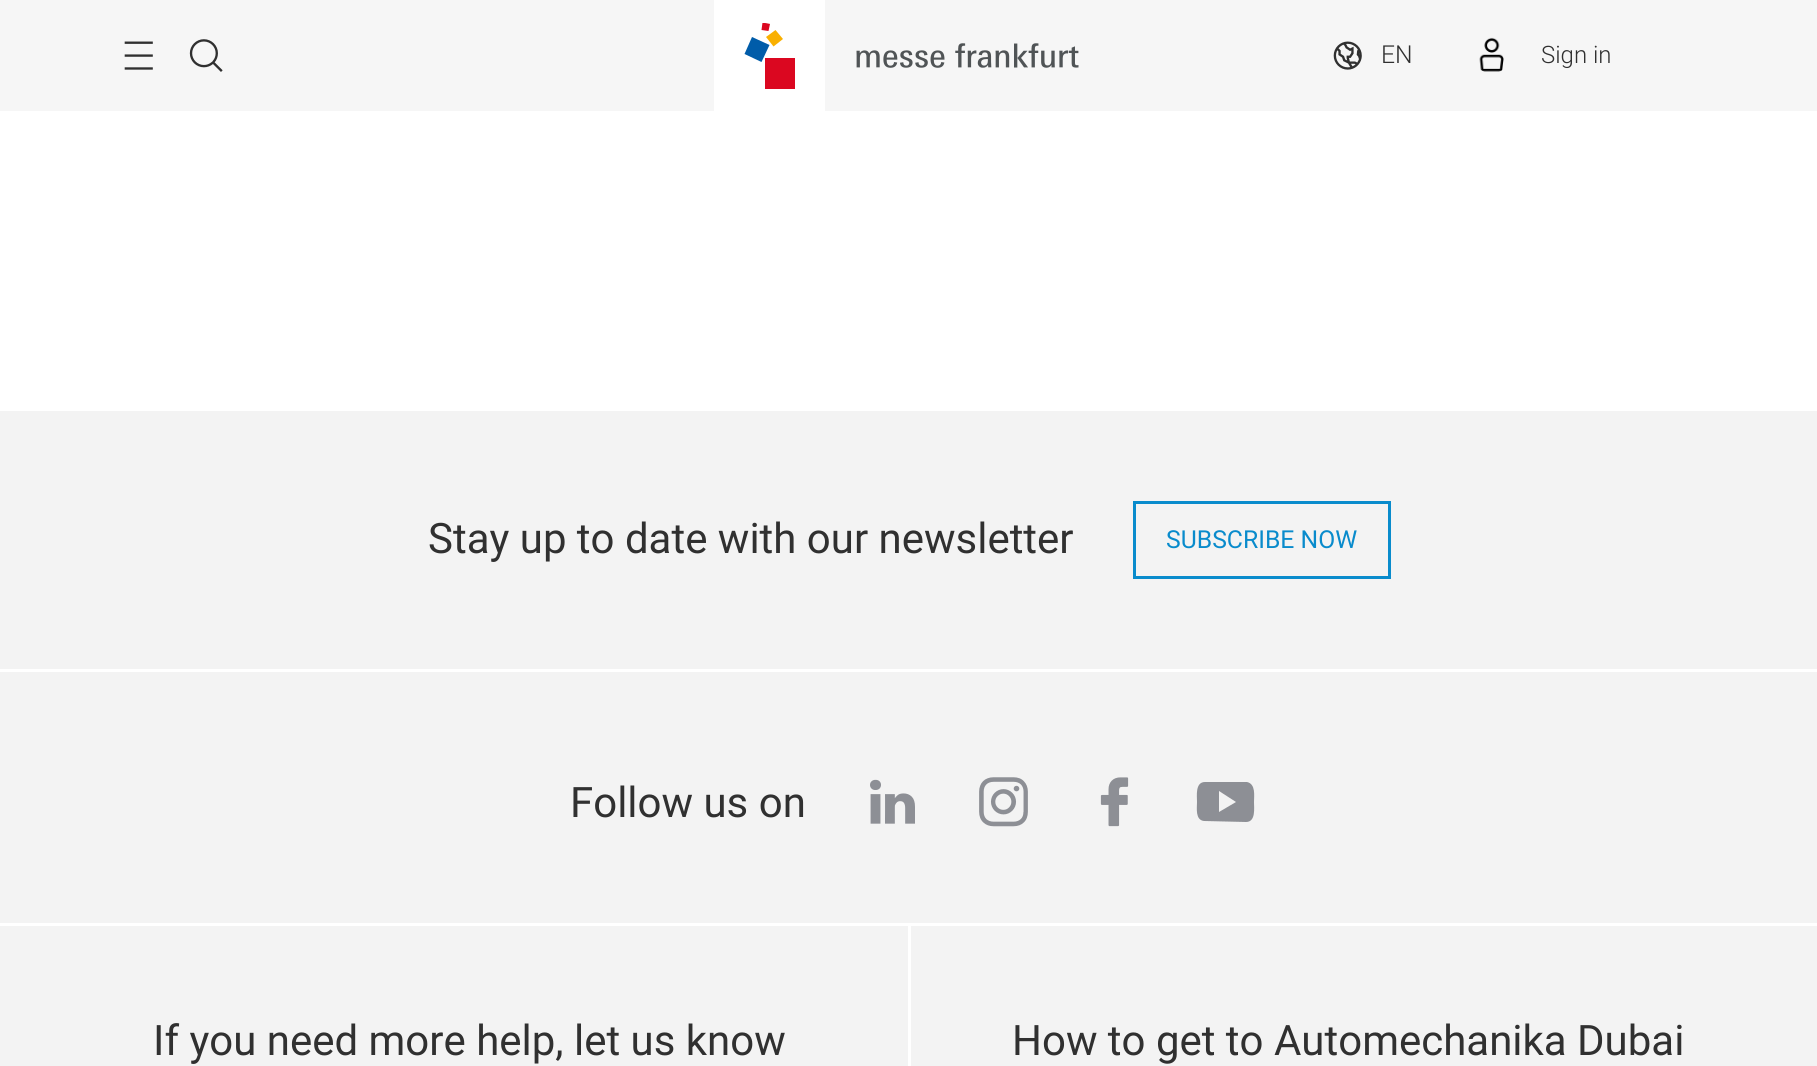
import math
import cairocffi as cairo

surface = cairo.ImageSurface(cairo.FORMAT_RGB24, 1817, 1066)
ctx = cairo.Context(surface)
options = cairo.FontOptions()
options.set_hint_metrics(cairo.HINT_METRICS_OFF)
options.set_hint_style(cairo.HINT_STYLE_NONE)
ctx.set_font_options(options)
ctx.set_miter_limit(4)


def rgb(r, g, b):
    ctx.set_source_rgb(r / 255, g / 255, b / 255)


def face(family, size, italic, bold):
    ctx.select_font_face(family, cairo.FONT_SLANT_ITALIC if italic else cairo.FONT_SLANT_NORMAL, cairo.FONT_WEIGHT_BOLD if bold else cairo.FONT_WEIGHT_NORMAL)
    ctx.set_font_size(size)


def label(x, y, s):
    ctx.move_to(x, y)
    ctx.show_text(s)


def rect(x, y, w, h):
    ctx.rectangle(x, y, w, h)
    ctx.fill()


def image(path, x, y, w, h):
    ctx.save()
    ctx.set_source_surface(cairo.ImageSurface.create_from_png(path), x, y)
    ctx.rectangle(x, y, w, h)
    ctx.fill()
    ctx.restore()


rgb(255, 255, 255)
ctx.paint()
rgb(246, 246, 246)
rect(0, 0, 1817, 111)
image('image0.png', 124, 41, 29, 29)
image('image1.png', 189, 39, 34, 33)
rgb(255, 255, 255)
rect(714, 0, 111, 111)
rgb(219, 7, 32)
rect(765, 58, 30, 31)
rgb(0, 92, 169)
ctx.new_path()
ctx.move_to(761.5, 62)
ctx.line_to(744.5, 54)
ctx.line_to(752, 37)
ctx.line_to(769.5, 45)
ctx.close_path()
ctx.fill()
rgb(249, 176, 0)
ctx.new_path()
ctx.move_to(773.5, 46.5)
ctx.line_to(766, 37)
ctx.line_to(775.5, 30)
ctx.line_to(783, 39)
ctx.close_path()
ctx.fill()
ctx.save()
ctx.rectangle(744, 23, 51, 66)
ctx.clip()
rgb(219, 7, 32)
ctx.new_path()
ctx.move_to(768.5, 31)
ctx.line_to(761.5, 30)
ctx.line_to(762.5, 22.5)
ctx.line_to(770, 24)
ctx.close_path()
ctx.fill()
ctx.restore()
image('image2.png', 856, 43, 223, 25)
image('image3.png', 1333, 41, 29, 29)
face('Roboto Light', 24.75, 0, 0)
rgb(48, 48, 48)
label(1381, 63, 'EN')
image('image4.png', 1479, 37, 25, 35)
face('Roboto Light', 24, 0, 0)
label(1541, 63, 'Sign in')
rgb(243, 243, 243)
rect(0, 411, 1817, 258)
face('Roboto', 42, 0, 0)
rgb(48, 48, 48)
label(428, 553, 'Stay up to date with our newsletter')
ctx.rectangle(1134.5, 502.5, 255, 75)
rgb(9, 139, 204)
ctx.set_line_width(3)
ctx.stroke()
face('Roboto', 24.75, 0, 0)
label(1166, 548, 'SUBSCRIBE NOW')
rgb(243, 243, 243)
rect(0, 672, 1817, 251)
face('Roboto', 42, 0, 0)
rgb(48, 48, 48)
label(570, 817, 'Follow us on')
image('image5.png', 870, 779, 45, 45)
image('image6.png', 979, 777, 49, 50)
image('image7.png', 1100, 777, 29, 50)
rgb(141, 143, 149)
ctx.new_path()
ctx.move_to(1205, 782)
ctx.line_to(1247, 782)
ctx.curve_to(1256, 784, 1254, 796, 1254, 802)
ctx.curve_to(1254, 808, 1256, 822, 1246, 822)
ctx.line_to(1204, 821)
ctx.curve_to(1195, 820, 1197, 808, 1197, 802)
ctx.curve_to(1197, 796, 1195, 782, 1205, 782)
ctx.close_path()
ctx.move_to(1219, 791)
ctx.line_to(1219, 812)
ctx.line_to(1236, 802)
ctx.close_path()
ctx.fill()
rgb(243, 243, 243)
rect(0, 926, 908, 140)
rgb(48, 48, 48)
label(153, 1055, 'If you need more help, let us know')
rgb(243, 243, 243)
rect(911, 926, 906, 140)
rgb(48, 48, 48)
label(1012, 1055, 'How to get to Automechanika Dubai')
surface.write_to_png('render.png')
